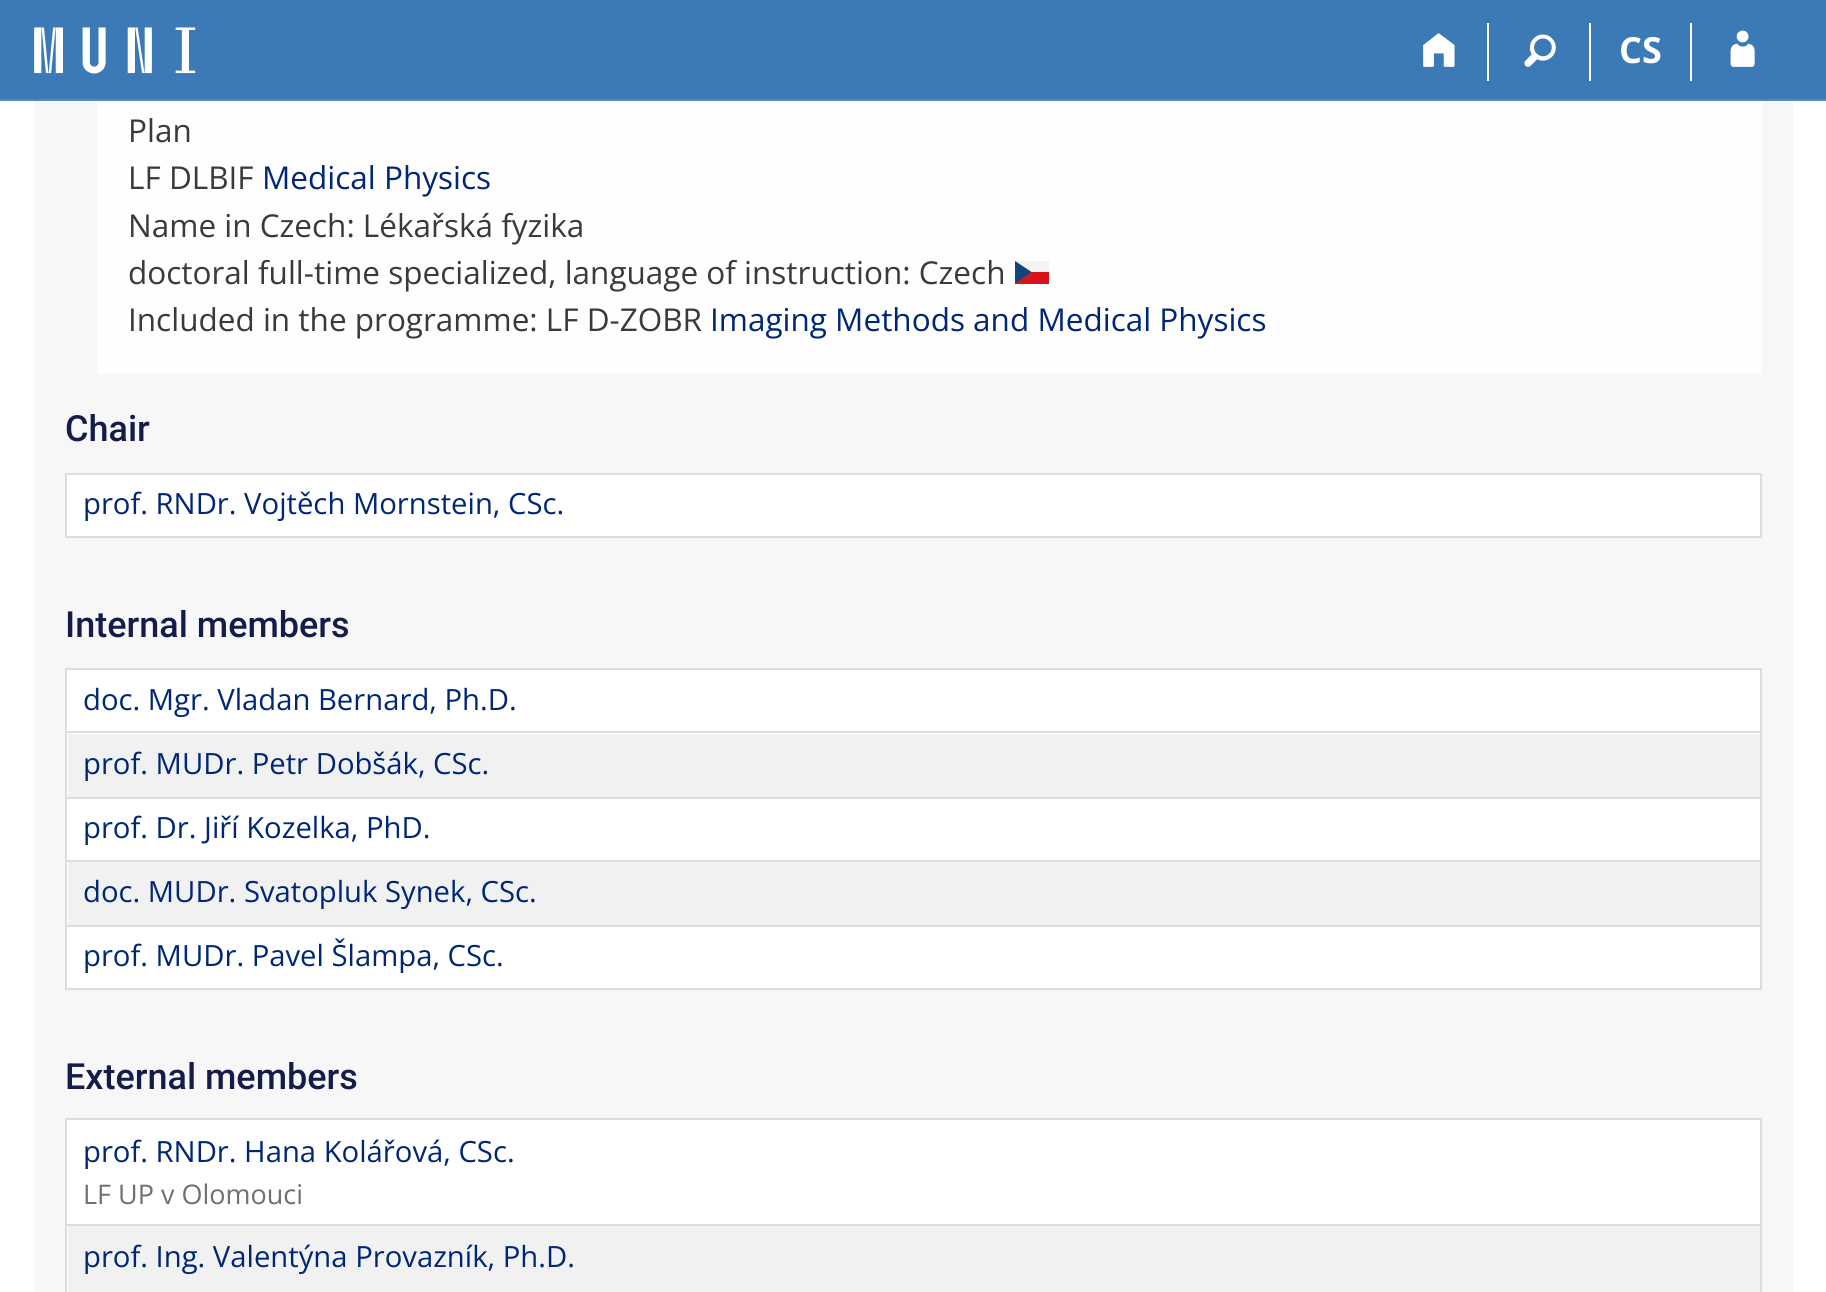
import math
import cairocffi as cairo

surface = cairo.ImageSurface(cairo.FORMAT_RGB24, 1826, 1292)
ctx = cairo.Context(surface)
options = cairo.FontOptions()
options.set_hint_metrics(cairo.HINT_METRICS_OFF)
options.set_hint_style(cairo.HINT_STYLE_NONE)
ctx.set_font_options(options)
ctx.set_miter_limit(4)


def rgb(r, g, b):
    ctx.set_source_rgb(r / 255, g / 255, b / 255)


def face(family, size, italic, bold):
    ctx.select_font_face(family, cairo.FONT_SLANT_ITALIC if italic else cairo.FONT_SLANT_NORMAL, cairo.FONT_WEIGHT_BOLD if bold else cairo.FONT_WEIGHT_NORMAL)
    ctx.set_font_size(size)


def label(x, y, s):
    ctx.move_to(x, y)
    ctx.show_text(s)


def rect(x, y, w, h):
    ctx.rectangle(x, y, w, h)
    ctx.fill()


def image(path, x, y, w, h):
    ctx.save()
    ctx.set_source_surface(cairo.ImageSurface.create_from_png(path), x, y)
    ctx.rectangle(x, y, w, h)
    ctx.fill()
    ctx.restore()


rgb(255, 255, 255)
ctx.paint()
rgb(60, 122, 183)
rect(0, 0, 1826, 99)
rgb(92, 136, 182)
rect(0, 99, 1826, 2)
image('image0.png', 34, 27, 162, 47)
rgb(255, 255, 255)
rect(1487, 23, 2, 58)
image('image1.png', 1423, 33, 32, 34)
rect(1589, 23, 2, 58)
image('image2.png', 1524, 34, 32, 33)
rect(1690, 23, 2, 58)
face('Open Sans', 36, 0, 1)
label(1619, 63, 'CS')
image('image3.png', 1730, 30, 25, 37)
rgb(247, 247, 247)
rect(34, 101, 1759, 1191)
rgb(254, 254, 254)
rect(97, 101, 1665, 273)
face('Open Sans', 31.5, 0, 0)
rgb(58, 58, 58)
label(128, 142, 'Plan')
label(128, 189, 'LF DLBIF')
rgb(0, 39, 118)
label(262, 189, 'Medical Physics')
rgb(58, 58, 58)
label(128, 237, 'Name in Czech: Lékařská fyzika')
label(128, 284, 'doctoral full-time specialized, language of instruction: Czech')
rgb(215, 20, 26)
rect(1015, 272, 34, 12)
rgb(243, 243, 243)
rect(1015, 261, 34, 11)
rgb(17, 69, 126)
ctx.new_path()
ctx.move_to(1031.5, 272)
ctx.line_to(1015, 261)
ctx.line_to(1015, 283.5)
ctx.close_path()
ctx.fill()
rgb(58, 58, 58)
label(128, 331, 'Included in the programme: LF D-ZOBR')
rgb(0, 39, 118)
label(710, 331, 'Imaging Methods and Medical Physics')
face('Roboto Medium', 36, 0, 0)
rgb(20, 28, 74)
label(65, 441, 'Chair')
rgb(255, 255, 255)
rect(67, 475, 1693, 61)
rgb(221, 221, 221)
rect(65, 473, 1697, 2)
rect(1760, 473, 2, 65)
rect(65, 536, 1697, 2)
rect(65, 473, 2, 65)
face('Open Sans', 29.25, 0, 0)
rgb(0, 39, 118)
label(83, 514, 'prof. RNDr. Vojtěch Mornstein, CSc.')
face('Roboto Medium', 36, 0, 0)
rgb(20, 28, 74)
label(65, 637, 'Internal members')
rgb(255, 255, 255)
rect(67, 670, 1693, 318)
rgb(221, 221, 221)
rect(65, 668, 1697, 2)
rect(65, 731, 1697, 2)
rect(65, 797, 1697, 2)
rect(65, 860, 1697, 2)
rect(65, 925, 1697, 2)
rect(1760, 925, 2, 65)
rect(1760, 860, 2, 67)
rect(1760, 797, 2, 65)
rect(1760, 731, 2, 68)
rect(1760, 668, 2, 66)
rect(65, 988, 1697, 2)
rect(65, 925, 2, 65)
rect(65, 860, 2, 67)
rect(65, 797, 2, 65)
rect(65, 731, 2, 68)
rect(65, 668, 2, 66)
face('Open Sans', 29.25, 0, 0)
rgb(0, 39, 118)
label(83, 710, 'doc. Mgr. Vladan Bernard, Ph.D.')
rgb(241, 241, 241)
rect(68, 734, 1692, 63)
rgb(0, 39, 118)
label(83, 774, 'prof. MUDr. Petr Dobšák, CSc.')
label(83, 838, 'prof. Dr. Jiří Kozelka, PhD.')
rgb(241, 241, 241)
rect(68, 862, 1692, 63)
rgb(0, 39, 118)
label(83, 902, 'doc. MUDr. Svatopluk Synek, CSc.')
label(83, 966, 'prof. MUDr. Pavel Šlampa, CSc.')
face('Roboto Medium', 36, 0, 0)
rgb(20, 28, 74)
label(65, 1089, 'External members')
rgb(255, 255, 255)
rect(67, 1120, 1693, 172)
rgb(221, 221, 221)
rect(65, 1118, 1697, 2)
rect(65, 1224, 1697, 2)
rect(1760, 1224, 2, 68)
rect(1760, 1118, 2, 108)
rect(65, 1224, 2, 68)
rect(65, 1118, 2, 108)
face('Open Sans', 29.25, 0, 0)
rgb(0, 39, 118)
label(83, 1162, 'prof. RNDr. Hana Kolářová, CSc.')
face('Open Sans', 27, 0, 0)
rgb(112, 112, 112)
label(83, 1204, 'LF UP v Olomouci')
rgb(241, 241, 241)
rect(68, 1226, 1692, 66)
face('Open Sans', 29.25, 0, 0)
rgb(0, 39, 118)
label(83, 1267, 'prof. Ing. Valentýna Provazník, Ph.D.')
surface.write_to_png('render.png')
